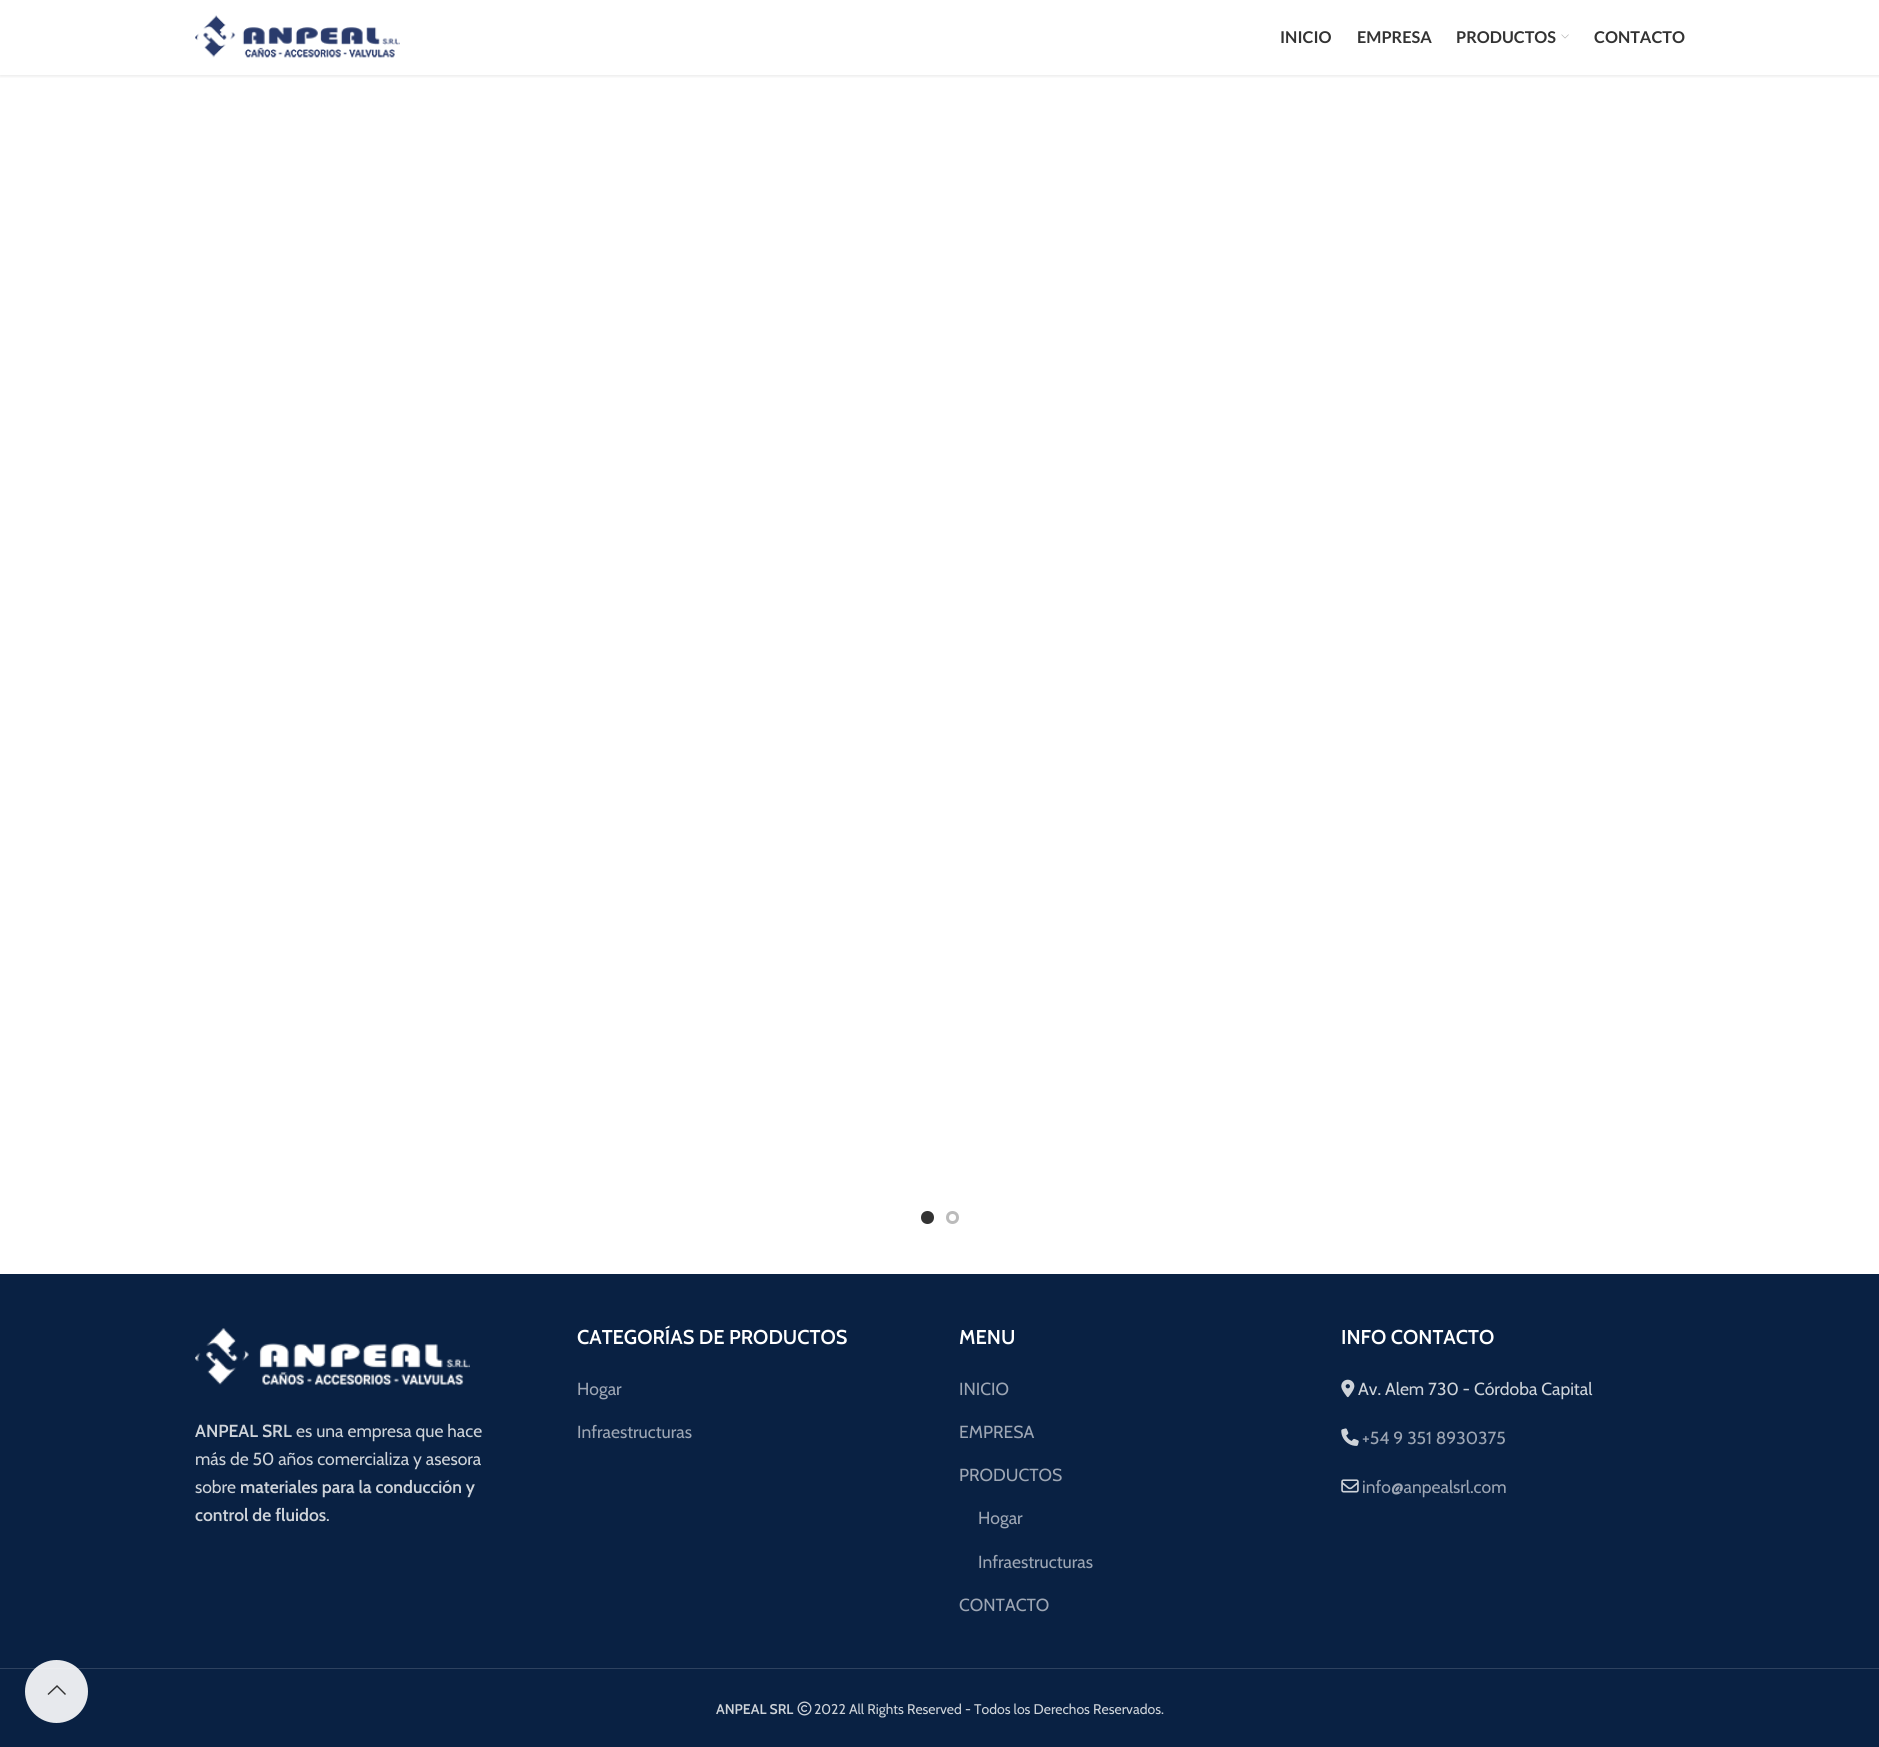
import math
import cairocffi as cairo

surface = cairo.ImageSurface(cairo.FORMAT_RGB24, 1879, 1747)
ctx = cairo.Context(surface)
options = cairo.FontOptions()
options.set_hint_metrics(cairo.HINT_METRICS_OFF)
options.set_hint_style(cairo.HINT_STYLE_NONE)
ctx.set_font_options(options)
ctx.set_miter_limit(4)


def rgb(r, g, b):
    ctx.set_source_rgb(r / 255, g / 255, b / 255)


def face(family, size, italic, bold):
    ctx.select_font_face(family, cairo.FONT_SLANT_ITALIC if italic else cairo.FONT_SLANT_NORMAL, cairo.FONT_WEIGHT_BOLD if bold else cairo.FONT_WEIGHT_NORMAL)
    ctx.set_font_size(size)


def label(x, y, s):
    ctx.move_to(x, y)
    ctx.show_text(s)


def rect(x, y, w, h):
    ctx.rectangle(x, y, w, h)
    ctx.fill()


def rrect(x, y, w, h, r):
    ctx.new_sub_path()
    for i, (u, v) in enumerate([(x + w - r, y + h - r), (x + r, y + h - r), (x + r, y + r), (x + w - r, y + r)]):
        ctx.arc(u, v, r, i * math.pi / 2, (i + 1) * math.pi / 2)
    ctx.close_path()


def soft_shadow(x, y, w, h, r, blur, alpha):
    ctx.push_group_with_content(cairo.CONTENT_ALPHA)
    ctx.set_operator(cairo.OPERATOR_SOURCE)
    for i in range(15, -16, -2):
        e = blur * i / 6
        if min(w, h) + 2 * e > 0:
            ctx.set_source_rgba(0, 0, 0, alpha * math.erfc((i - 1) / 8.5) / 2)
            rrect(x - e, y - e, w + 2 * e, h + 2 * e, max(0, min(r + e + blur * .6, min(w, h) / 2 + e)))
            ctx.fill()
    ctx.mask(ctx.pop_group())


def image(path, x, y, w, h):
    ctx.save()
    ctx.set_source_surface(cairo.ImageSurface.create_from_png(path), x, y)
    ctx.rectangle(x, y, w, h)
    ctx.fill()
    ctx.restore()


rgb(255, 255, 255)
ctx.paint()
rgb(9, 33, 67)
rect(0, 1274, 1879, 473)
rgb(46, 66, 95)
rect(0, 1668, 1879, 1)
ctx.set_source_rgba(1, 1, 1, 0.9)
ctx.arc(56.5, 1691.5, 31.5, 0, 2 * math.pi)
ctx.fill()
rgb(51, 51, 51)
ctx.new_path()
ctx.move_to(65, 1695)
ctx.line_to(66, 1694)
ctx.line_to(57, 1685)
ctx.line_to(47.5, 1694)
ctx.line_to(48.5, 1695)
ctx.line_to(57, 1687)
ctx.close_path()
ctx.fill()
ctx.save()
ctx.rectangle(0, 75, 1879, 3)
ctx.clip()
rgb(0, 0, 0)
soft_shadow(0, 1, 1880, 75, 0, 2, 0.1)
ctx.restore()
image('image0.png', 195, 15, 205, 43)
face('Lato', 16.25, 0, 1)
label(1280, 43, 'INICIO')
label(1357, 43, 'EMPRESA')
label(1456, 43, 'PRODUCTOS')
image('image1.png', 1561, 34, 8, 5)
label(1594, 43, 'CONTACTO')
ctx.new_path()
ctx.arc(927.5, 1217.5, 5, 0, 2 * math.pi)
ctx.fill_preserve()
ctx.set_line_width(3)
ctx.stroke()
ctx.arc(952.5, 1217.5, 5, 0, 2 * math.pi)
rgb(187, 187, 187)
ctx.stroke()
image('image2.png', 195, 1328, 275, 57)
face('Cabin SemiBold', 17.5, 0, 0)
rgb(206, 211, 217)
label(195, 1437, 'ANPEAL SRL')
face('Cabin', 17.5, 0, 0)
label(296, 1437, 'es una empresa que hace')
label(195, 1465, 'más de 50 años comercializa y asesora')
label(195, 1493, 'sobre')
face('Cabin SemiBold', 17.5, 0, 0)
label(240, 1493, 'materiales para la conducción y')
label(195, 1521, 'control de fluidos')
face('Cabin', 17.5, 0, 0)
label(326, 1521, '.')
face('Cabin SemiBold', 20, 0, 0)
rgb(255, 255, 255)
label(577, 1344, 'CATEGORÍAS DE PRODUCTOS')
face('Cabin', 17.5, 0, 0)
rgb(157, 166, 180)
label(577, 1395, 'Hogar')
label(577, 1438, 'Infraestructuras')
face('Cabin SemiBold', 20, 0, 0)
rgb(255, 255, 255)
label(959, 1344, 'MENU')
face('Cabin', 17.5, 0, 0)
rgb(157, 166, 180)
label(959, 1395, 'INICIO')
label(959, 1438, 'EMPRESA')
label(959, 1481, 'PRODUCTOS')
label(978, 1524, 'Hogar')
label(978, 1568, 'Infraestructuras')
label(959, 1611, 'CONTACTO')
face('Cabin SemiBold', 20, 0, 0)
rgb(255, 255, 255)
label(1341, 1344, 'INFO CONTACTO')
image('image3.png', 1341, 1379, 14, 19)
face('Cabin', 17.5, 0, 0)
rgb(206, 211, 217)
label(1358, 1395, 'Av. Alem 730 - Córdoba Capital')
image('image4.png', 1341, 1428, 18, 18)
rgb(157, 166, 180)
label(1362, 1444, '+54 9 351 8930375')
image('image5.png', 1341, 1479, 18, 14)
label(1362, 1493, 'info@anpealsrl.com')
face('Cabin SemiBold', 14, 0, 0)
rgb(206, 211, 217)
label(716, 1714, 'ANPEAL SRL')
image('image6.png', 797, 1701, 15, 15)
face('Cabin', 14, 0, 0)
label(814, 1714, '2022 All Rights Reserved - Todos los Derechos Reservados.')
surface.write_to_png('render.png')
